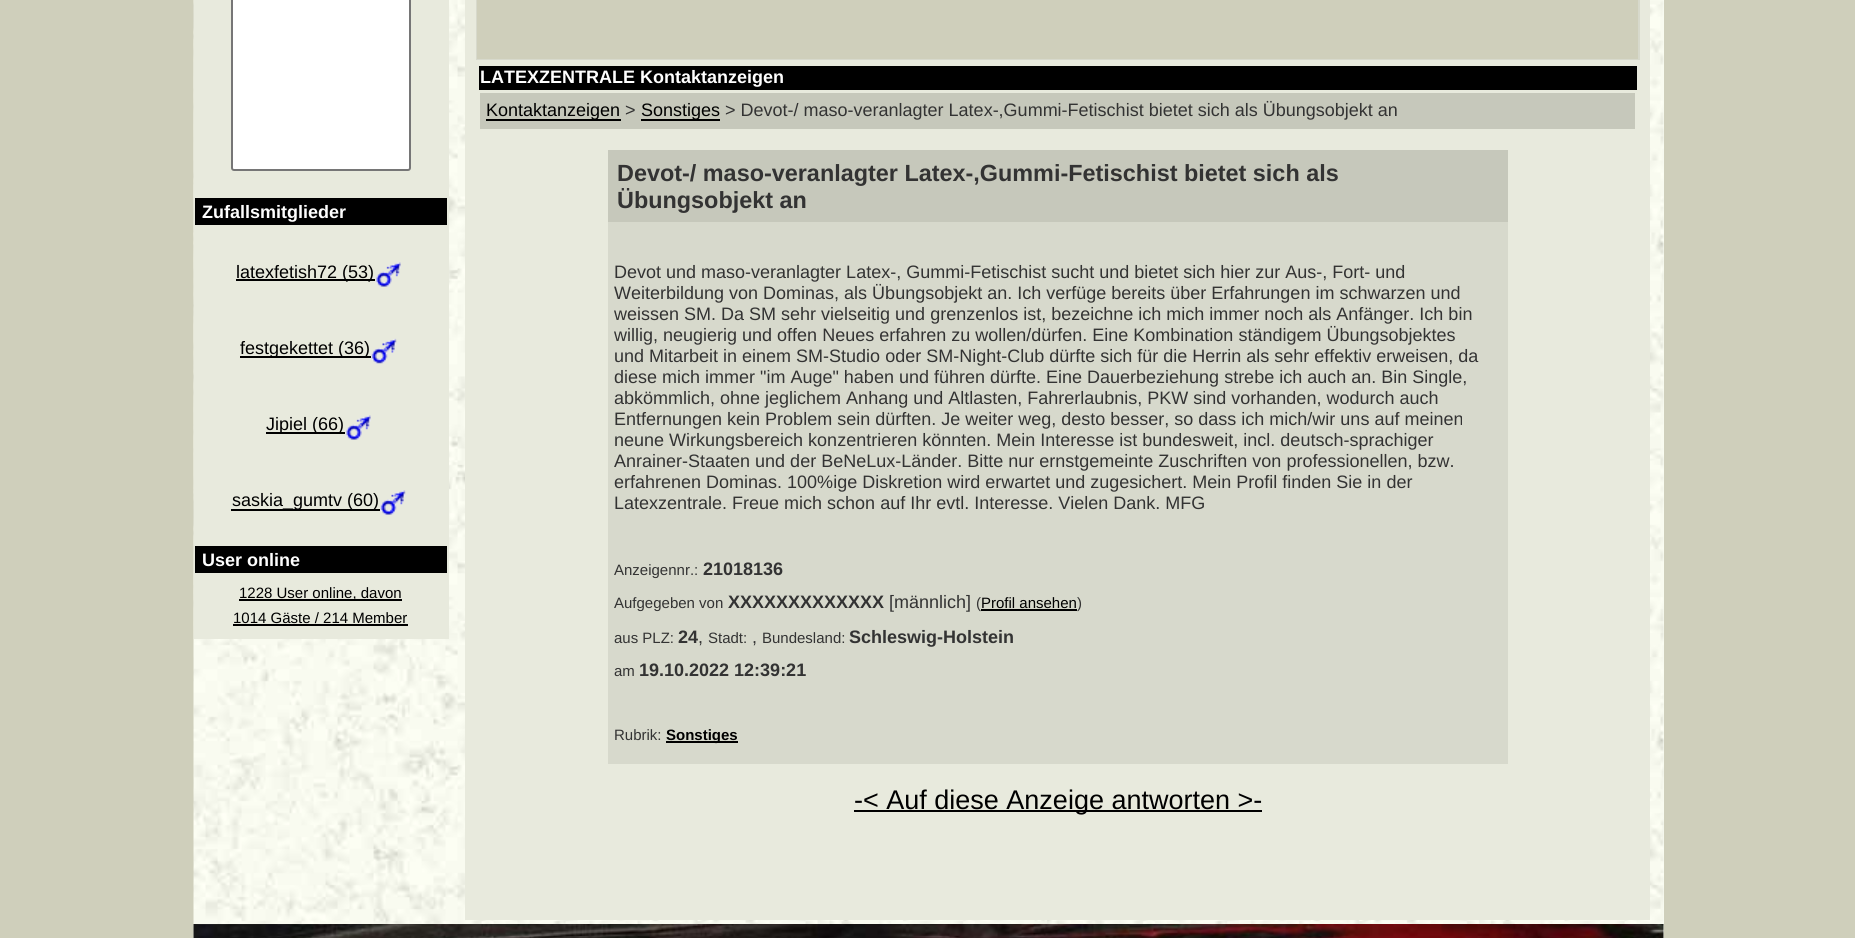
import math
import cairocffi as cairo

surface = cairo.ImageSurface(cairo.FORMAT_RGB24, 1855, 938)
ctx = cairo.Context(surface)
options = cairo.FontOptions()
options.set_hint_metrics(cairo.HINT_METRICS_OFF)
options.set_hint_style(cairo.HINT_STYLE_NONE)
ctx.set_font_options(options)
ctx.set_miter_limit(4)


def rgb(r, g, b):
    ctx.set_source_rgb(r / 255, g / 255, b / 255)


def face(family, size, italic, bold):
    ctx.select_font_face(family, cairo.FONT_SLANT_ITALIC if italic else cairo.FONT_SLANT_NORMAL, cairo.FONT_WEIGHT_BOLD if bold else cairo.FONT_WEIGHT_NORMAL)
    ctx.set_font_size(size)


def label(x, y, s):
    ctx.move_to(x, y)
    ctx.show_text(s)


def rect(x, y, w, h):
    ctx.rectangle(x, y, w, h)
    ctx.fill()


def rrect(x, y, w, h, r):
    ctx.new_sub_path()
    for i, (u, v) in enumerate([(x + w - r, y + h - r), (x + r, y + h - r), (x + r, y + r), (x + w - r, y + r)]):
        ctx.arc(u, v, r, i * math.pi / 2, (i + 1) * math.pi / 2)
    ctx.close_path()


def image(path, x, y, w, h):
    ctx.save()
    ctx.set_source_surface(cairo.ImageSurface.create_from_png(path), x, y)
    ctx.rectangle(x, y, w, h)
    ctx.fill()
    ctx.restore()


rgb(207, 207, 187)
ctx.paint()
rgb(249, 253, 243)
rect(1663, 0, 1, 938)
image('image0.png', 193, 0, 1471, 938)
rgb(232, 234, 221)
rect(194, 0, 255, 639)
rgb(255, 255, 255)
rrect(232, -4, 178, 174, 2)
ctx.fill_preserve()
rgb(118, 118, 118)
ctx.stroke()
rgb(0, 0, 0)
rect(195, 198, 252, 27)
face('Liberation Sans', 18, 0, 1)
rgb(254, 254, 254)
label(202, 218, 'Zufallsmitglieder')
rgb(0, 0, 0)
rect(236, 279, 139, 2)
face('Liberation Sans', 18, 0, 0)
label(236, 278, 'latexfetish72 (53)')
image('image1.png', 376, 262, 25, 25)
rect(240, 356, 131, 2)
label(240, 354, 'festgekettet (36)')
image('image2.png', 371, 338, 26, 26)
rect(266, 432, 79, 2)
label(266, 430, 'Jipiel (66)')
image('image1.png', 346, 415, 25, 25)
rect(231, 509, 149, 2)
label(232, 506, 'saskia_gumtv (60)')
image('image3.png', 380, 490, 26, 25)
rect(195, 546, 252, 27)
face('Liberation Sans', 18, 0, 1)
rgb(254, 254, 254)
label(202, 566, 'User online')
rgb(0, 0, 0)
rect(239, 599, 163, 2)
face('Liberation Sans', 15, 0, 0)
label(239, 598, '1228 User online, davon')
label(233, 623, '1014 Gäste / 214 Member')
rect(233, 624, 175, 2)
rgb(232, 234, 221)
rect(465, 0, 1185, 920)
rgb(215, 217, 204)
rect(476, 0, 1164, 60)
rgb(207, 207, 187)
rect(477, 0, 1161, 59)
rgb(0, 0, 0)
rect(479, 66, 1158, 24)
face('Liberation Sans', 18, 0, 1)
rgb(254, 254, 254)
label(480, 83, 'LATEXZENTRALE Kontaktanzeigen')
rgb(198, 200, 187)
rect(480, 93, 1155, 36)
rgb(0, 0, 0)
rect(486, 119, 135, 2)
face('Liberation Sans', 18, 0, 0)
label(486, 116, 'Kontaktanzeigen')
rgb(51, 51, 51)
label(625, 116, '>')
rgb(0, 0, 0)
rect(641, 119, 79, 2)
label(641, 116, 'Sonstiges')
rgb(51, 51, 51)
label(725, 116, '> Devot-/ maso-veranlagter Latex-,Gummi-Fetischist bietet sich als Übungsobjekt an')
rgb(215, 217, 204)
rect(608, 222, 900, 542)
rgb(198, 200, 187)
rect(608, 150, 900, 72)
face('Liberation Sans', 23.4, 0, 1)
rgb(51, 51, 51)
label(617, 181, 'Devot-/ maso-veranlagter Latex-,Gummi-Fetischist bietet sich als')
label(617, 208, 'Übungsobjekt an')
face('Liberation Sans', 18, 0, 0)
label(614, 278, 'Devot und maso-veranlagter Latex-, Gummi-Fetischist sucht und bietet sich hier zur Aus-, Fort- und')
label(614, 299, 'Weiterbildung von Dominas, als Übungsobjekt an. Ich verfüge bereits über Erfahrungen im schwarzen und')
label(614, 320, 'weissen SM. Da SM sehr vielseitig und grenzenlos ist, bezeichne ich mich immer noch als Anfänger. Ich bin')
label(614, 341, 'willig, neugierig und offen Neues erfahren zu wollen/dürfen. Eine Kombination ständigem Übungsobjektes')
label(614, 362, 'und Mitarbeit in einem SM-Studio oder SM-Night-Club dürfte sich für die Herrin als sehr effektiv erweisen, da')
label(614, 383, 'diese mich immer "im Auge" haben und führen dürfte. Eine Dauerbeziehung strebe ich auch an. Bin Single,')
label(614, 404, 'abkömmlich, ohne jeglichem Anhang und Altlasten, Fahrerlaubnis, PKW sind vorhanden, wodurch auch')
label(614, 425, 'Entfernungen kein Problem sein dürften. Je weiter weg, desto besser, so dass ich mich/wir uns auf meinen')
label(614, 446, 'neune Wirkungsbereich konzentrieren könnten. Mein Interesse ist bundesweit, incl. deutsch-sprachiger')
label(614, 467, 'Anrainer-Staaten und der BeNeLux-Länder. Bitte nur ernstgemeinte Zuschriften von professionellen, bzw.')
label(614, 488, 'erfahrenen Dominas. 100%ige Diskretion wird erwartet und zugesichert. Mein Profil finden Sie in der')
label(614, 509, 'Latexzentrale. Freue mich schon auf Ihr evtl. Interesse. Vielen Dank. MFG')
face('Liberation Sans', 15, 0, 0)
label(614, 575, 'Anzeigennr.:')
face('Liberation Sans', 18, 0, 1)
label(703, 575, '21018136')
face('Liberation Sans', 15, 0, 0)
label(614, 608, 'Aufgegeben von')
face('Liberation Sans', 18, 0, 1)
label(728, 608, 'XXXXXXXXXXXXX')
face('Liberation Sans', 18, 0, 0)
label(889, 608, '[männlich]')
face('Liberation Sans', 15, 0, 0)
label(976, 608, '(')
rgb(0, 0, 0)
rect(981, 609, 96, 2)
label(981, 608, 'Profil ansehen')
rgb(51, 51, 51)
label(1077, 608, ')')
label(614, 643, 'aus PLZ:')
face('Liberation Sans', 18, 0, 1)
label(678, 643, '24')
face('Liberation Sans', 18, 0, 0)
label(698, 643, ',')
face('Liberation Sans', 15, 0, 0)
label(708, 643, 'Stadt:')
face('Liberation Sans', 18, 0, 0)
label(752, 643, ',')
face('Liberation Sans', 15, 0, 0)
label(762, 643, 'Bundesland:')
face('Liberation Sans', 18, 0, 1)
label(849, 643, 'Schleswig-Holstein')
face('Liberation Sans', 15, 0, 0)
label(614, 676, 'am')
face('Liberation Sans', 18, 0, 1)
label(639, 676, '19.10.2022 12:39:21')
face('Liberation Sans', 15, 0, 0)
label(614, 740, 'Rubrik:')
rgb(0, 0, 0)
rect(666, 741, 72, 2)
face('Liberation Sans', 15, 0, 1)
label(666, 740, 'Sonstiges')
rect(854, 810, 408, 2)
face('Liberation Sans', 27, 0, 0)
label(854, 809, '-< Auf diese Anzeige antworten >-')
image('image4.png', 193, 924, 1471, 14)
surface.write_to_png('render.png')
